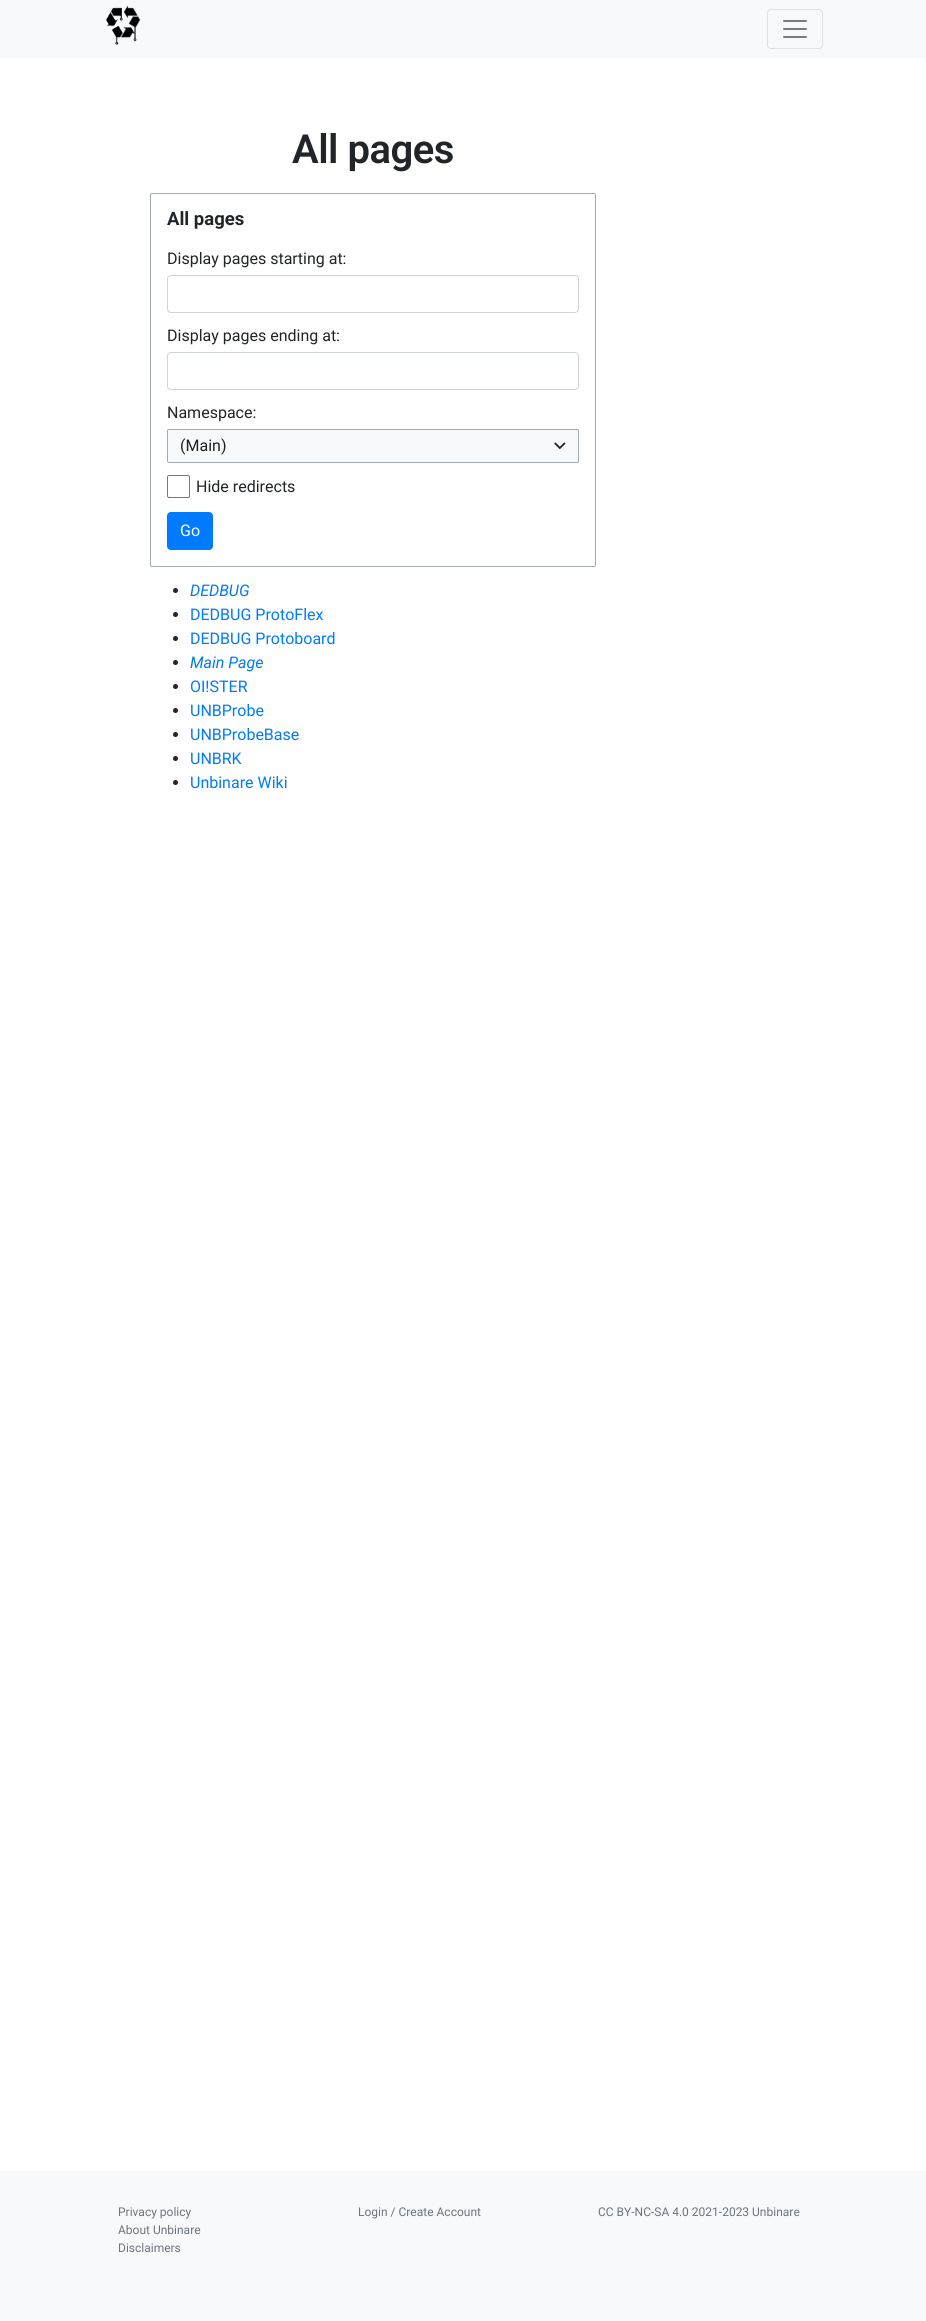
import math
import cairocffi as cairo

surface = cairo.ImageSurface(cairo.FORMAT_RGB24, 926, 2321)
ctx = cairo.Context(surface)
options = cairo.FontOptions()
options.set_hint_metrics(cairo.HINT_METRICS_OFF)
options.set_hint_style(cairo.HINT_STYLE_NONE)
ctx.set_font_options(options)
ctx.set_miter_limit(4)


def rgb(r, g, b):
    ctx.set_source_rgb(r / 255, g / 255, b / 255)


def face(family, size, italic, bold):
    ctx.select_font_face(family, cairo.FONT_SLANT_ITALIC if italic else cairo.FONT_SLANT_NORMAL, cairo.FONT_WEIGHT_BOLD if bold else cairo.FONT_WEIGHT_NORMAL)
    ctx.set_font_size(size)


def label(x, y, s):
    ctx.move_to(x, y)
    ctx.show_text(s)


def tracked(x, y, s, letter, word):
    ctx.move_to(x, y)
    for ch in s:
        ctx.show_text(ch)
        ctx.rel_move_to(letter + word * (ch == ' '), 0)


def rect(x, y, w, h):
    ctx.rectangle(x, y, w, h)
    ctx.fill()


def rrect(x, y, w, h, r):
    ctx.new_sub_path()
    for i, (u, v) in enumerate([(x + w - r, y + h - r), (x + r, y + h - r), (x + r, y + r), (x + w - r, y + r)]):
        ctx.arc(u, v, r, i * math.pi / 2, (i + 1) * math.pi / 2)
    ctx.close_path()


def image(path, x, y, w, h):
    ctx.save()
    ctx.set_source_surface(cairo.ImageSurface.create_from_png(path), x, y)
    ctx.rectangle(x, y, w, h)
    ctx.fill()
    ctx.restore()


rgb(255, 255, 255)
ctx.paint()
rgb(248, 249, 250)
rect(0, 0, 926, 58)
image('image0.png', 106, 5, 35, 40)
rrect(767.5, 9.5, 55, 39, 3.5)
rgb(223, 224, 225)
ctx.set_line_width(1)
ctx.stroke()
image('image1.png', 783, 20, 24, 18)
face('Roboto SemiBold', 40, 0, 0)
rgb(33, 37, 41)
tracked(292, 163, 'All pages', -0.5, 0)
rrect(150.5, 193.5, 445, 373, 1.5)
rgb(162, 169, 177)
ctx.stroke()
face('Roboto', 18.5, 0, 1)
rgb(33, 37, 41)
label(167, 225, 'All pages')
face('Roboto', 16, 0, 0)
label(167, 264, 'Display pages starting at:')
rrect(167.5, 275.5, 411, 37, 3.5)
rgb(206, 212, 218)
ctx.stroke()
rgb(33, 37, 41)
label(167, 341, 'Display pages ending at:')
rrect(167.5, 352.5, 411, 37, 3.5)
rgb(206, 212, 218)
ctx.stroke()
rgb(33, 37, 41)
label(167, 418, 'Namespace:')
rgb(248, 249, 250)
rect(167, 429, 412, 34)
rrect(167.5, 429.5, 411, 33, 1.5)
rgb(162, 169, 177)
ctx.stroke()
rgb(32, 33, 34)
label(180, 451, '(Main)')
image('image2.png', 554, 442, 12, 8)
rrect(167.5, 475.5, 22, 22, 1.5)
rgb(114, 119, 125)
ctx.stroke()
rgb(33, 37, 41)
label(196, 492, 'Hide redirects')
rgb(0, 123, 255)
rrect(167.5, 512.5, 45, 37, 3.5)
ctx.fill_preserve()
ctx.stroke()
rgb(255, 255, 255)
label(180, 536, 'Go')
rgb(33, 37, 41)
ctx.new_path()
ctx.arc(175.5, 590.5, 2.5, 0, 2 * math.pi)
ctx.fill()
face('Roboto', 16, 1, 0)
rgb(0, 123, 255)
label(190, 596, 'DEDBUG')
rgb(33, 37, 41)
ctx.new_path()
ctx.arc(175.5, 614.5, 2.5, 0, 2 * math.pi)
ctx.fill()
face('Roboto', 16, 0, 0)
rgb(0, 123, 255)
label(190, 620, 'DEDBUG ProtoFlex')
rgb(33, 37, 41)
ctx.new_path()
ctx.arc(175.5, 638.5, 2.5, 0, 2 * math.pi)
ctx.fill()
rgb(0, 123, 255)
label(190, 644, 'DEDBUG Protoboard')
rgb(33, 37, 41)
ctx.new_path()
ctx.arc(175.5, 662.5, 2.5, 0, 2 * math.pi)
ctx.fill()
face('Roboto', 16, 1, 0)
rgb(0, 123, 255)
label(190, 668, 'Main Page')
rgb(33, 37, 41)
ctx.new_path()
ctx.arc(175.5, 686.5, 2.5, 0, 2 * math.pi)
ctx.fill()
face('Roboto', 16, 0, 0)
rgb(0, 123, 255)
label(190, 692, 'OI!STER')
rgb(33, 37, 41)
ctx.new_path()
ctx.arc(175.5, 710.5, 2.5, 0, 2 * math.pi)
ctx.fill()
rgb(0, 123, 255)
label(190, 716, 'UNBProbe')
rgb(33, 37, 41)
ctx.new_path()
ctx.arc(175.5, 734.5, 2.5, 0, 2 * math.pi)
ctx.fill()
rgb(0, 123, 255)
label(190, 740, 'UNBProbeBase')
rgb(33, 37, 41)
ctx.new_path()
ctx.arc(175.5, 758.5, 2.5, 0, 2 * math.pi)
ctx.fill()
rgb(0, 123, 255)
label(190, 764, 'UNBRK')
rgb(33, 37, 41)
ctx.new_path()
ctx.arc(175.5, 782.5, 2.5, 0, 2 * math.pi)
ctx.fill()
rgb(0, 123, 255)
label(190, 788, 'Unbinare Wiki')
rgb(248, 249, 250)
rect(0, 2171, 926, 150)
face('Roboto', 12, 0, 0)
rgb(108, 117, 125)
label(118, 2216, 'Privacy policy')
label(118, 2234, 'About Unbinare')
label(118, 2252, 'Disclaimers')
label(358, 2216, 'Login / Create Account')
label(598, 2216, 'CC BY-NC-SA 4.0 2021-2023 Unbinare')
surface.write_to_png('render.png')
